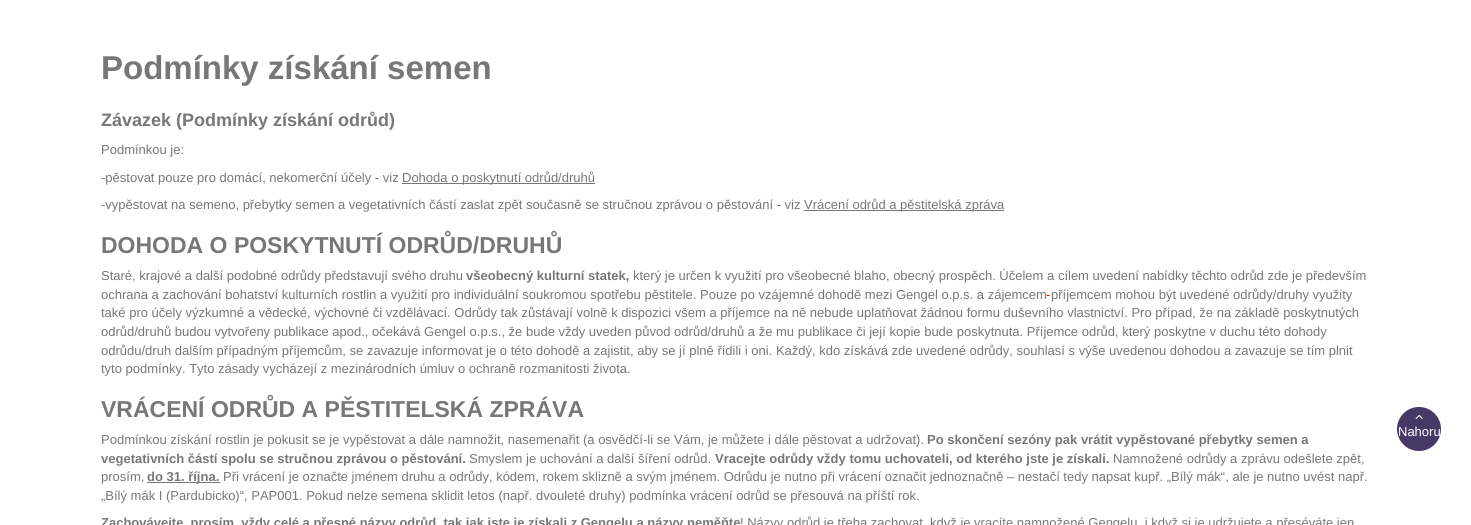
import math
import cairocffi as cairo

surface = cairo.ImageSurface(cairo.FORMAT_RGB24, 1471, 525)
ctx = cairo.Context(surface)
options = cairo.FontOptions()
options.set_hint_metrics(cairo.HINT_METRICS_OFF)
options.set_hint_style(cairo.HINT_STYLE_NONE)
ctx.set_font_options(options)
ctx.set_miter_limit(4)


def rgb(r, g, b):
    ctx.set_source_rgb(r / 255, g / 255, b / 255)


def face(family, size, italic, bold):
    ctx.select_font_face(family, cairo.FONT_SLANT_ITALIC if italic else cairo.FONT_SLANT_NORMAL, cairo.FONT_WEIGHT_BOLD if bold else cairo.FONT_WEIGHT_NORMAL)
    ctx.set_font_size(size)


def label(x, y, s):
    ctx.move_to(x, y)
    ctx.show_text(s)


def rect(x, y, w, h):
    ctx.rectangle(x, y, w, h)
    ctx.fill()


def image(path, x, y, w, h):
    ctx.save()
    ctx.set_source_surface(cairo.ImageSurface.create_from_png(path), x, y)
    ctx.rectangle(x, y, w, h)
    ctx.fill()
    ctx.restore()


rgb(255, 255, 255)
ctx.paint()
face('Liberation Sans', 33, 0, 1)
rgb(119, 119, 119)
label(101, 79, 'Podmínky získání semen')
face('Liberation Sans', 18, 0, 1)
label(101, 126, 'Závazek (Podmínky získání odrůd)')
face('Liberation Sans', 13, 0, 0)
label(101, 154, 'Podmínkou je:')
label(101, 182, '-pěstovat pouze pro domácí, nekomerční účely - viz')
rect(402, 183, 193, 1)
label(402, 182, 'Dohoda o poskytnutí odrůd/druhů')
label(101, 209, '-vypěstovat na semeno, přebytky semen a vegetativních částí zaslat zpět současně se stručnou zprávou o pěstování - viz')
rect(804, 210, 200, 1)
label(804, 209, 'Vrácení odrůd a pěstitelská zpráva')
face('Liberation Sans', 23, 0, 1)
label(101, 253, 'DOHODA O POSKYTNUTÍ ODRŮD/DRUHŮ')
face('Liberation Sans', 13, 0, 0)
label(101, 280, 'Staré, krajové a další podobné odrůdy představují svého druhu')
face('Liberation Sans', 13, 0, 1)
label(466, 280, 'všeobecný kulturní statek,')
face('Liberation Sans', 13, 0, 0)
label(633, 280, 'který je určen k využití pro všeobecné blaho, obecný prospěch. Účelem a cílem uvedení nabídky těchto odrůd zde je především')
label(101, 299, 'ochrana a zachování bohatství kulturních rostlin a využití pro individuální soukromou spotřebu pěstitele. Pouze po vzájemné dohodě mezi Gengel o.p.s. a zájemcem')
rgb(255, 0, 0)
label(1046, 299, '-')
rgb(119, 119, 119)
label(1051, 299, 'příjemcem mohou být uvedené odrůdy/druhy využity')
label(101, 317, 'také pro účely výzkumné a vědecké, výchovné či vzdělávací. Odrůdy tak zůstávají volně k dispozici všem a příjemce na ně nebude uplatňovat žádnou formu duševního vlastnictví. Pro případ, že na základě poskytnutých')
label(101, 336, 'odrůd/druhů budou vytvořeny publikace apod., očekává Gengel o.p.s., že bude vždy uveden původ odrůd/druhů a že mu publikace či její kopie bude poskytnuta. Příjemce odrůd, který poskytne v duchu této dohody')
label(101, 355, 'odrůdu/druh dalším případným příjemcům, se zavazuje informovat je o této dohodě a zajistit, aby se jí plně řídili i oni. Každý, kdo získává zde uvedené odrůdy, souhlasí s výše uvedenou dohodou a zavazuje se tím plnit')
label(101, 373, 'tyto podmínky. Tyto zásady vycházejí z mezinárodních úmluv o ochraně rozmanitosti života.')
face('Liberation Sans', 23, 0, 1)
label(101, 417, 'VRÁCENÍ ODRŮD A PĚSTITELSKÁ ZPRÁVA')
face('Liberation Sans', 13, 0, 0)
label(101, 444, 'Podmínkou získání rostlin je pokusit se je vypěstovat a dále namnožit, nasemenařit (a osvědčí-li se Vám, je můžete i dále pěstovat a udržovat).')
face('Liberation Sans', 13, 0, 1)
label(927, 444, 'Po skončení sezóny pak vrátit vypěstované přebytky semen a')
label(101, 463, 'vegetativních částí spolu se stručnou zprávou o pěstování.')
face('Liberation Sans', 13, 0, 0)
label(469, 463, 'Smyslem je uchování a další šíření odrůd.')
face('Liberation Sans', 13, 0, 1)
label(715, 463, 'Vracejte odrůdy vždy tomu uchovateli, od kterého jste je získali.')
face('Liberation Sans', 13, 0, 0)
label(1113, 463, 'Namnožené odrůdy a zprávu odešlete zpět,')
label(101, 481, 'prosím,')
rect(147, 482, 73, 1)
face('Liberation Sans', 13, 0, 1)
label(147, 481, 'do 31. října.')
face('Liberation Sans', 13, 0, 0)
label(223, 481, 'Při vrácení je označte jménem druhu a odrůdy, kódem, rokem sklizně a svým jménem. Odrůdu je nutno při vrácení označit jednoznačně – nestačí tedy napsat kupř. „Bílý mák“, ale je nutno uvést např.')
label(101, 500, '„Bílý mák I (Pardubicko)“, PAP001. Pokud nelze semena sklidit letos (např. dvouleté druhy) podmínka vrácení odrůd se přesouvá na příští rok.')
face('Liberation Sans', 13, 0, 1)
label(101, 527, 'Zachovávejte, prosím, vždy celé a přesné názvy odrůd, tak jak jste je získali z Gengelu a názvy neměňte')
face('Liberation Sans', 13, 0, 0)
label(740, 527, '! Názvy odrůd je třeba zachovat, když je vracíte namnožené Gengelu, i když si je udržujete a přeséváte jen')
rgb(72, 56, 101)
ctx.new_path()
ctx.arc(1419, 429, 22, 0, 2 * math.pi)
ctx.fill()
image('image0.png', 1415, 414, 8, 5)
rgb(255, 255, 255)
label(1398, 436, 'Nahoru')
surface.write_to_png('render.png')
